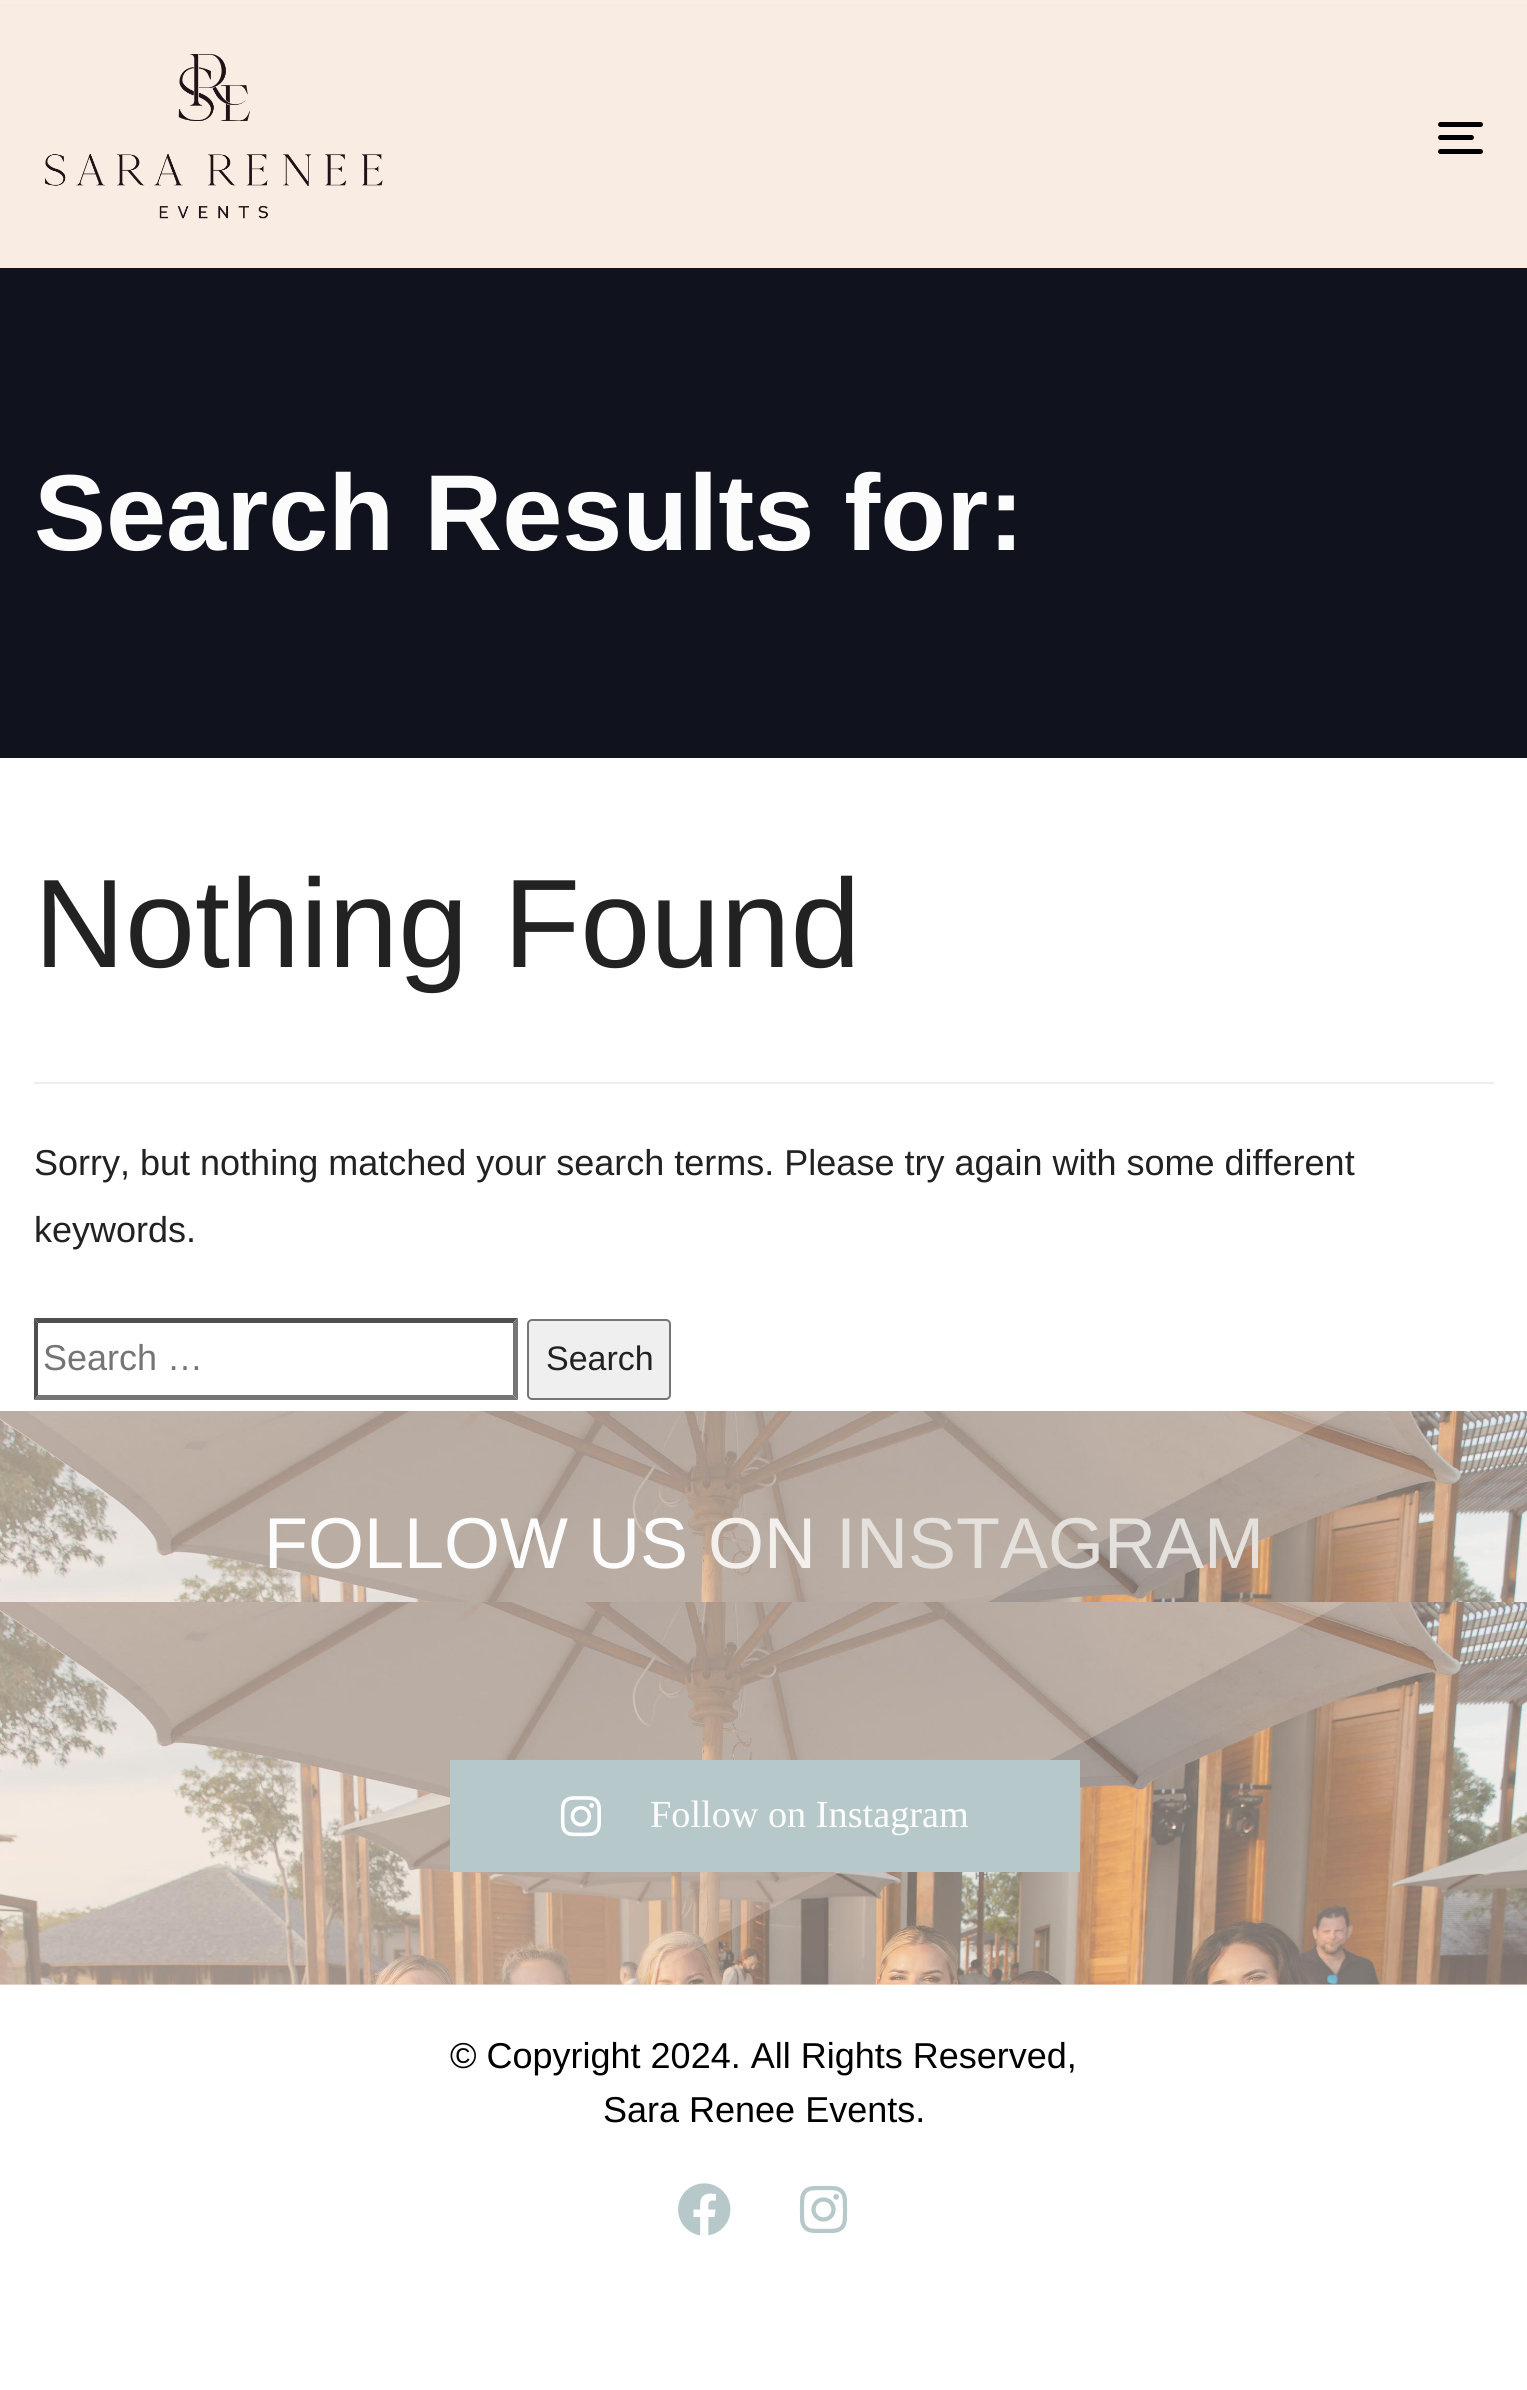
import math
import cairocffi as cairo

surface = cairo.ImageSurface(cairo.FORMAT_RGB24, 1527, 2390)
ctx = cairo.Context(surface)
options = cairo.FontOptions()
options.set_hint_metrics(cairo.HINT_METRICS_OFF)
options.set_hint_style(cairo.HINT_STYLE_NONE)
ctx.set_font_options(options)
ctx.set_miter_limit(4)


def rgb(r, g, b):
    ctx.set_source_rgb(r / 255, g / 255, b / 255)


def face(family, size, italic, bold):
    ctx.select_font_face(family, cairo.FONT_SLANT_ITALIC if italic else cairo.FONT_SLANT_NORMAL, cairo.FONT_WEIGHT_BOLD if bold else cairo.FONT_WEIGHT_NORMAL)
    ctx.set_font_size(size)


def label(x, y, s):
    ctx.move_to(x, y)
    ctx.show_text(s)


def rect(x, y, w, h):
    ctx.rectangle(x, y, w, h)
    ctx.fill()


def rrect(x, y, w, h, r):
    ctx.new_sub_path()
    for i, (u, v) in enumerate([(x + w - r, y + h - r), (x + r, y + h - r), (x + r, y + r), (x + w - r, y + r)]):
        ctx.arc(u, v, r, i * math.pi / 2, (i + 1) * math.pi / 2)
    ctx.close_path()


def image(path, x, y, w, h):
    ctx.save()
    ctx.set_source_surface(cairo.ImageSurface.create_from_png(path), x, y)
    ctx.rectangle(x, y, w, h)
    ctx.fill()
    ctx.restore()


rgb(255, 255, 255)
ctx.paint()
rgb(249, 236, 226)
rect(0, 0, 1527, 268)
rgb(250, 238, 229)
rect(0, 2, 1527, 2)
image('image0.png', 45, 54, 338, 165)
rgb(0, 0, 0)
rrect(1438, 122, 45, 5, 2.5)
ctx.fill()
rrect(1438, 135, 36, 5, 2.5)
ctx.fill()
rrect(1438, 149, 45, 5, 2.5)
ctx.fill()
rgb(16, 19, 29)
rect(0, 268, 1527, 490)
face('Liberation Sans', 108, 0, 1)
rgb(253, 252, 252)
label(34, 550, 'Search Results for:')
rgb(238, 238, 238)
rect(34, 1082, 1460, 2)
face('Liberation Sans', 126, 0, 0)
rgb(34, 34, 34)
label(34, 967, 'Nothing Found')
face('Liberation Sans', 36, 0, 0)
label(34, 1175, 'Sorry, but nothing matched your search terms. Please try again with some different')
label(34, 1242, 'keywords.')
rgb(79, 79, 79)
ctx.new_path()
ctx.move_to(34, 1318)
ctx.line_to(518, 1318)
ctx.line_to(513, 1323)
ctx.line_to(38, 1323)
ctx.close_path()
ctx.fill()
rgb(118, 118, 118)
ctx.new_path()
ctx.move_to(518, 1318)
ctx.line_to(518, 1400)
ctx.line_to(513, 1395)
ctx.line_to(513, 1323)
ctx.close_path()
ctx.fill()
ctx.new_path()
ctx.move_to(518, 1400)
ctx.line_to(34, 1400)
ctx.line_to(38, 1395)
ctx.line_to(513, 1395)
ctx.close_path()
ctx.fill()
rgb(79, 79, 79)
ctx.new_path()
ctx.move_to(34, 1400)
ctx.line_to(34, 1318)
ctx.line_to(38, 1323)
ctx.line_to(38, 1395)
ctx.close_path()
ctx.fill()
rgb(117, 117, 117)
label(43, 1370, 'Search …')
rgb(239, 239, 239)
rrect(528, 1320, 142, 79, 4)
ctx.fill_preserve()
rgb(118, 118, 118)
ctx.stroke()
face('Liberation Sans', 34, 0, 0)
rgb(34, 34, 34)
label(546, 1370, 'Search')
image('image1.png', 0, 1411, 1527, 191)
face('Liberation Sans', 72, 0, 0)
rgb(253, 252, 252)
label(264, 1568, 'FOLLOW')
label(588, 1568, 'US')
rgb(242, 239, 237)
label(708, 1568, 'ON')
rgb(228, 224, 220)
label(836, 1568, 'INSTAGRAM')
rgb(249, 236, 227)
rect(0, 1984, 1527, 1)
image('image2.png', 0, 1602, 1527, 383)
rgb(182, 200, 202)
rect(450, 1760, 630, 112)
image('image3.png', 560, 1796, 41, 41)
face('Liberation Serif', 38.25, 0, 0)
rgb(253, 252, 252)
label(650, 1827, 'Follow on Instagram')
face('Liberation Sans', 36, 0, 0)
rgb(0, 0, 0)
label(450, 2068, '© Copyright 2024. All Rights Reserved,')
label(603, 2122, 'Sara Renee Events.')
image('image4.png', 678, 2183, 53, 53)
image('image5.png', 799, 2185, 49, 49)
surface.write_to_png('render.png')
